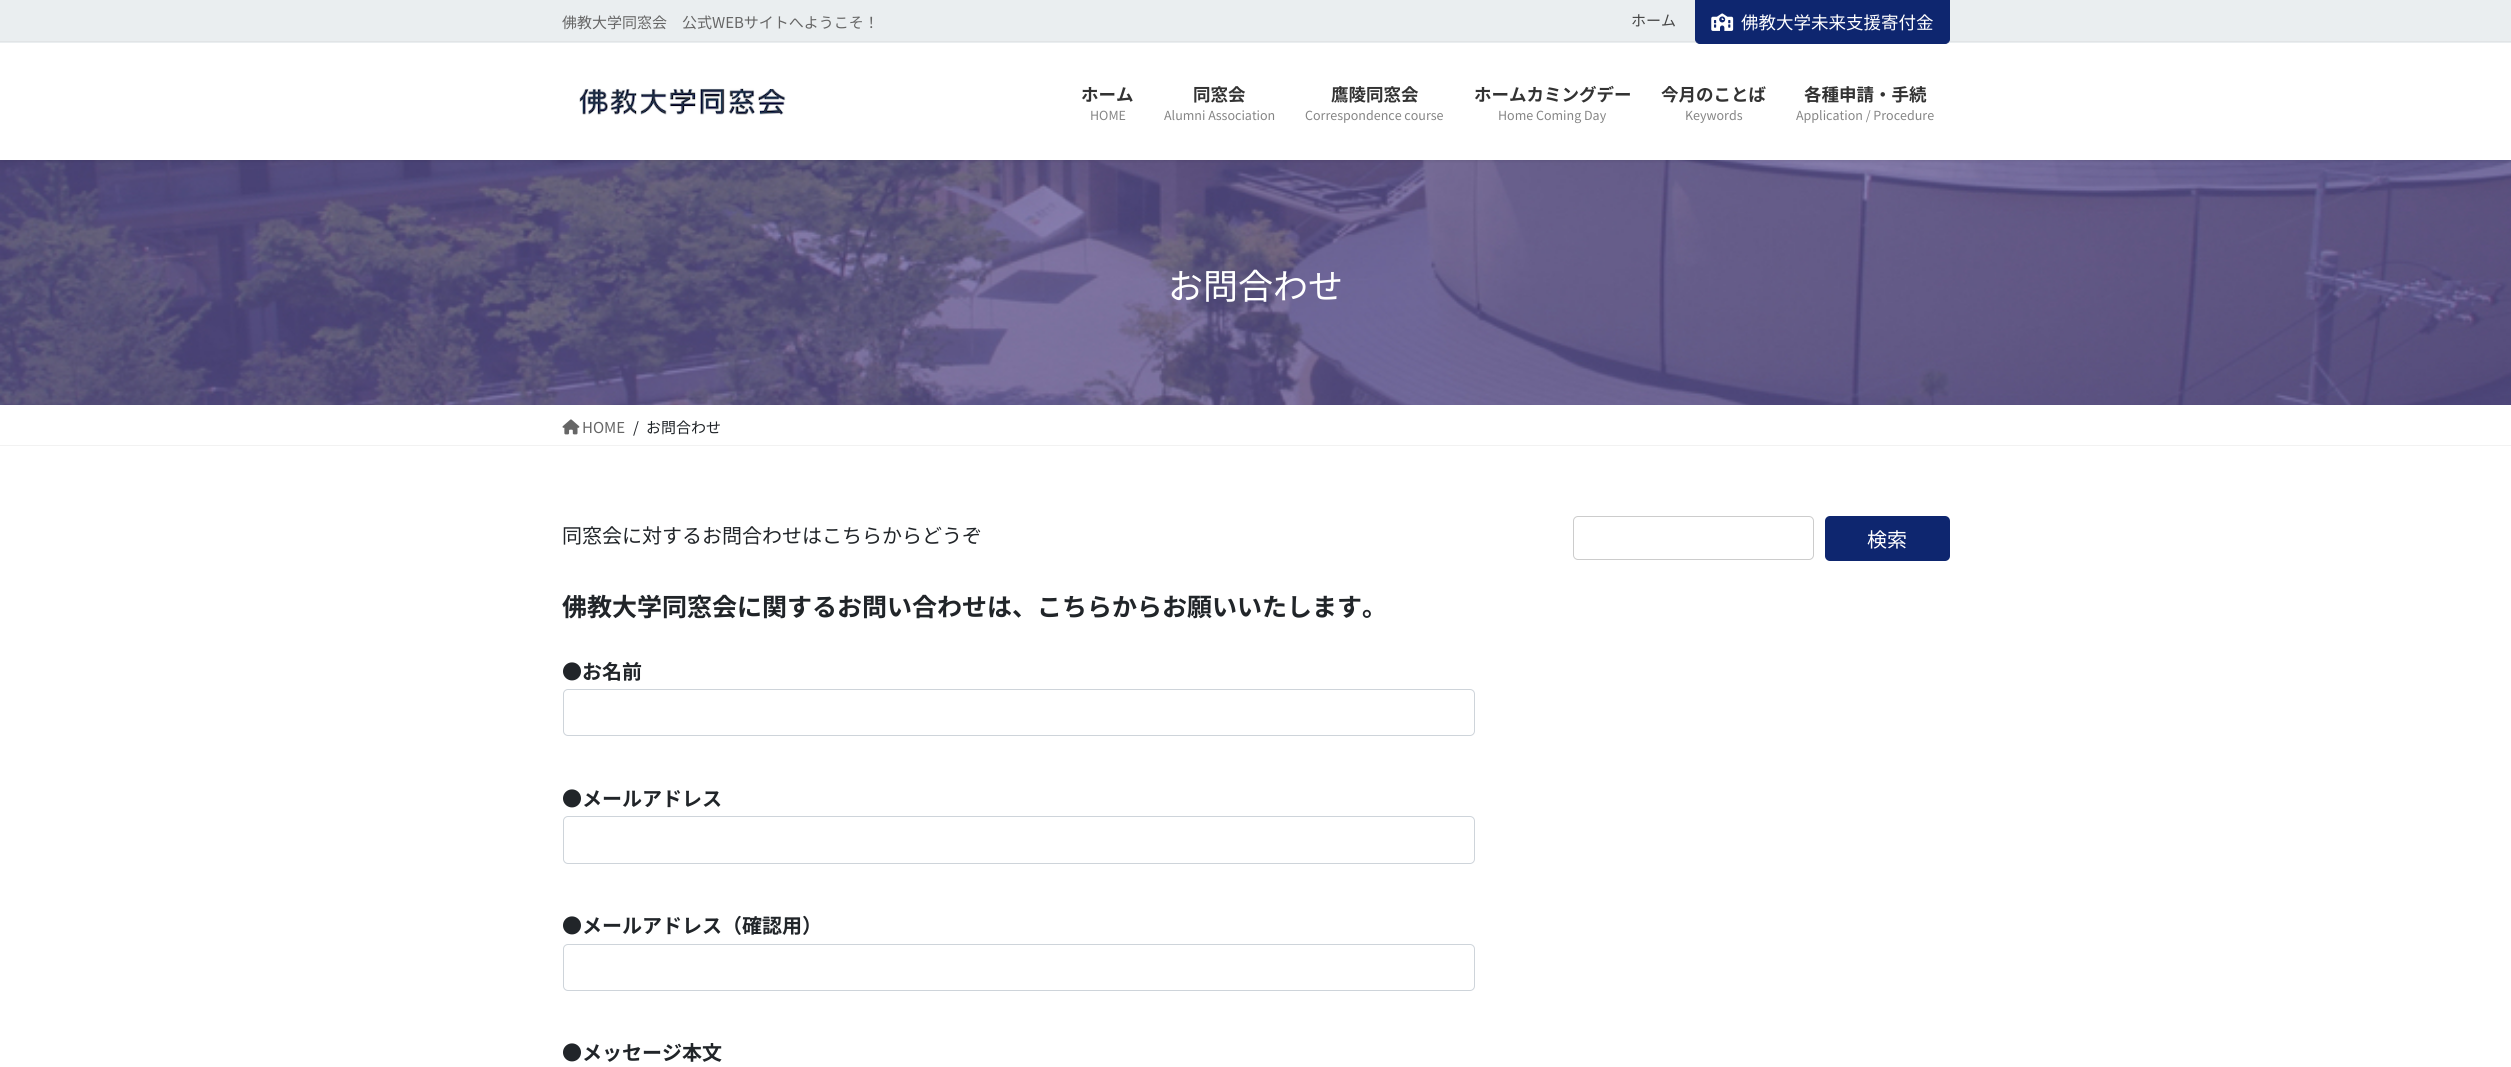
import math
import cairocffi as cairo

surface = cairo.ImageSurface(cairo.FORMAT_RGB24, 2511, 1067)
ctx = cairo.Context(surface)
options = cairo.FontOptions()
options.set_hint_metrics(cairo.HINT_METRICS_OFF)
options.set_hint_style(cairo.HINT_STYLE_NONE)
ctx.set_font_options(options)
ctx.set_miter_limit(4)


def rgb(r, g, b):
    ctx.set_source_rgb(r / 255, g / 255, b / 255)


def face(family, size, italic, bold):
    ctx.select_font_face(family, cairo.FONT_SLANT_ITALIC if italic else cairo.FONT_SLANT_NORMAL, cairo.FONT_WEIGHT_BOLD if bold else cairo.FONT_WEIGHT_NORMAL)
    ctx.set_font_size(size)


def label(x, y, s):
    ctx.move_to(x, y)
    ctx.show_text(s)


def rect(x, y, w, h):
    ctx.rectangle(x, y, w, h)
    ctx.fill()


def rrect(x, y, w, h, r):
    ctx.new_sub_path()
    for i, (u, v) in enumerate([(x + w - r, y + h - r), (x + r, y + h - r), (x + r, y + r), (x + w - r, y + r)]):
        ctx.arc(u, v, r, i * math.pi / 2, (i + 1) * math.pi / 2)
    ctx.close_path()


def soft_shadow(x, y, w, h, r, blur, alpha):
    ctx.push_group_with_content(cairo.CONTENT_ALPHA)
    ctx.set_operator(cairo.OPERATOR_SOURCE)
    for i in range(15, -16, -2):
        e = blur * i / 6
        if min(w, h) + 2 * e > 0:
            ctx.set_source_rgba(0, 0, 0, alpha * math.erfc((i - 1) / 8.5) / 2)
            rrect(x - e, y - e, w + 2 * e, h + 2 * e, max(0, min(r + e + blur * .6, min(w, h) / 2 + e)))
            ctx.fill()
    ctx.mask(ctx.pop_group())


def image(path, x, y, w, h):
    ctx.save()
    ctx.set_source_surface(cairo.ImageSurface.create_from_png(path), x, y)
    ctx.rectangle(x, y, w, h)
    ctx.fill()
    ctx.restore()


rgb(255, 255, 255)
ctx.paint()
image('image2.png', 0, 160, 2511, 245)
ctx.save()
ctx.rectangle(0, 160, 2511, 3)
ctx.clip()
rgb(0, 0, 0)
soft_shadow(0, -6, 2511, 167, 0, 2, 0.1)
ctx.restore()
rgb(234, 238, 240)
rect(0, 0, 2511, 43)
rgb(225, 228, 230)
rect(0, 41, 2511, 1)
face('Noto Sans JP', 15, 0, 0)
rgb(102, 102, 102)
label(562, 28, '佛教大学同窓会　公式WEBサイトへようこそ！')
rgb(70, 70, 70)
label(1631, 26, 'ホーム')
rgb(14, 38, 111)
ctx.new_path()
ctx.move_to(1695.5, 0.5)
ctx.line_to(1949.5, 0.5)
ctx.line_to(1949.5, 39)
ctx.curve_to(1949.5, 41.5, 1947.5, 43.5, 1945, 43.5)
ctx.line_to(1700, 43.5)
ctx.curve_to(1697.5, 43.5, 1695.5, 41.5, 1695.5, 39)
ctx.close_path()
ctx.fill_preserve()
ctx.set_line_width(1)
ctx.stroke()
image('image0.png', 1711, 13, 23, 18)
face('Noto Sans JP', 17.5, 0, 0)
rgb(255, 255, 255)
label(1741, 29, '佛教大学未来支援寄付金')
image('image1.png', 579, 88, 207, 27)
face('Noto Sans JP', 17.5, 0, 1)
rgb(51, 51, 51)
label(1081, 101, 'ホーム')
face('Noto Sans JP', 12.5, 0, 0)
rgb(133, 133, 133)
label(1090, 120, 'HOME')
face('Noto Sans JP', 17.5, 0, 1)
rgb(51, 51, 51)
label(1193, 101, '同窓会')
face('Noto Sans JP', 12.5, 0, 0)
rgb(133, 133, 133)
label(1164, 120, 'Alumni Association')
face('Noto Sans JP', 17.5, 0, 1)
rgb(51, 51, 51)
label(1331, 101, '鷹陵同窓会')
face('Noto Sans JP', 12.5, 0, 0)
rgb(133, 133, 133)
label(1305, 120, 'Correspondence course')
face('Noto Sans JP', 17.5, 0, 1)
rgb(51, 51, 51)
label(1474, 101, 'ホームカミングデー')
face('Noto Sans JP', 12.5, 0, 0)
rgb(133, 133, 133)
label(1498, 120, 'Home Coming Day')
face('Noto Sans JP', 17.5, 0, 1)
rgb(51, 51, 51)
label(1661, 101, '今月のことば')
face('Noto Sans JP', 12.5, 0, 0)
rgb(133, 133, 133)
label(1685, 120, 'Keywords')
face('Noto Sans JP', 17.5, 0, 1)
rgb(51, 51, 51)
label(1804, 101, '各種申請・手続')
face('Noto Sans JP', 12.5, 0, 0)
rgb(133, 133, 133)
label(1796, 120, 'Application / Procedure')
face('Noto Sans JP', 35, 0, 0)
rgb(255, 255, 255)
label(1168, 299, 'お問合わせ')
rgb(242, 242, 242)
rect(0, 445, 2511, 1)
image('image3.png', 562, 419, 18, 16)
face('Noto Sans JP', 15, 0, 0)
rgb(102, 102, 102)
label(582, 433, 'HOME')
rgb(33, 37, 41)
label(633, 433, '/')
label(646, 433, 'お問合わせ')
face('Noto Sans JP', 20, 0, 0)
label(562, 543, '同窓会に対するお問合わせはこちらからどうぞ')
face('Noto Sans JP', 25, 0, 1)
label(562, 616, '佛教大学同窓会に関するお問い合わせは、こちらからお願いいたします。')
face('Noto Sans JP', 20, 0, 1)
label(562, 679, '●お名前')
rrect(563.5, 689.5, 911, 46, 4.5)
rgb(206, 212, 218)
ctx.stroke()
rgb(33, 37, 41)
label(562, 806, '●メールアドレス')
rrect(563.5, 816.5, 911, 47, 4.5)
rgb(206, 212, 218)
ctx.stroke()
rgb(33, 37, 41)
label(562, 933, '●メールアドレス（確認用）')
rrect(563.5, 944.5, 911, 46, 4.5)
rgb(206, 212, 218)
ctx.stroke()
rgb(33, 37, 41)
label(562, 1060, '●メッセージ本文')
rrect(1573.5, 516.5, 240, 43, 4.5)
rgb(204, 204, 204)
ctx.stroke()
rgb(14, 38, 111)
rrect(1825, 516, 125, 45, 5)
ctx.fill()
face('Noto Sans JP', 20, 0, 0)
rgb(255, 255, 255)
label(1867, 547, '検索')
surface.write_to_png('render.png')
